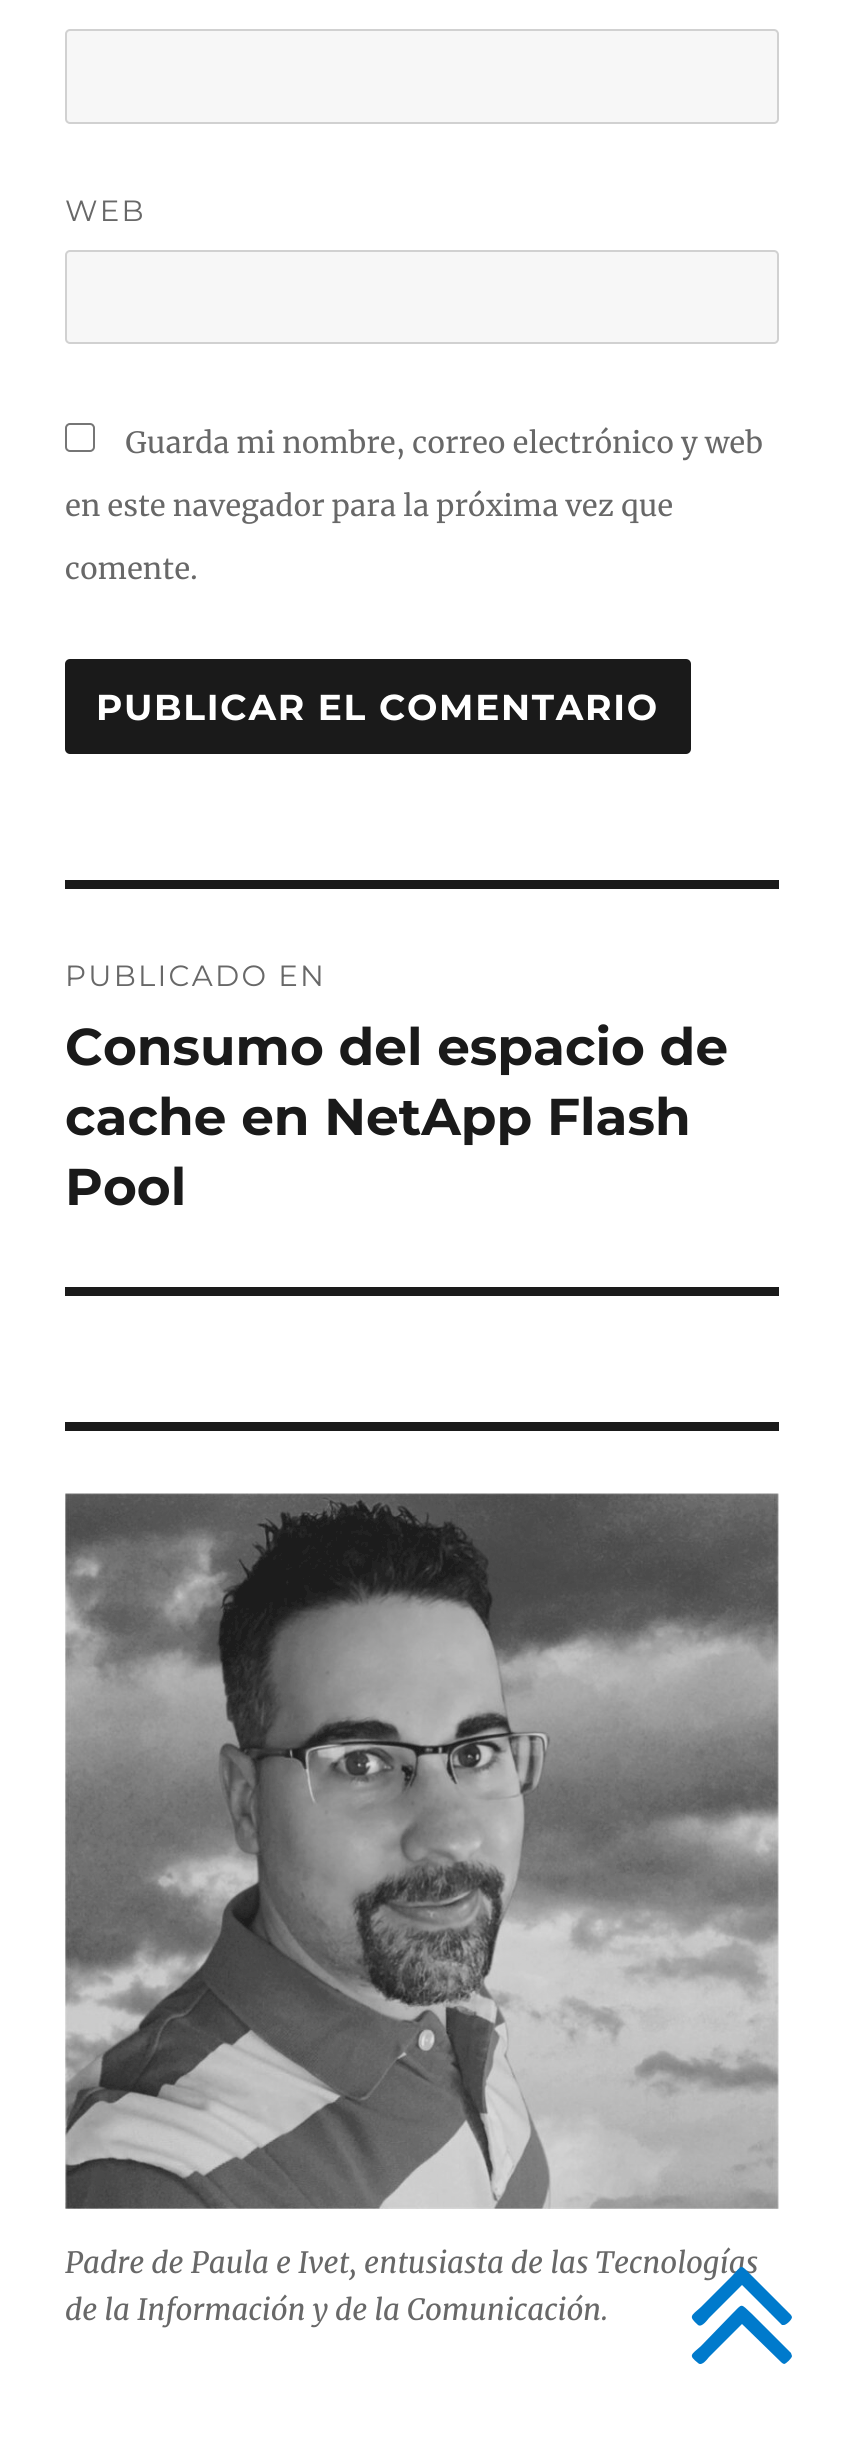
import math
import cairocffi as cairo

surface = cairo.ImageSurface(cairo.FORMAT_RGB24, 842, 2448)
ctx = cairo.Context(surface)
options = cairo.FontOptions()
options.set_hint_metrics(cairo.HINT_METRICS_OFF)
options.set_hint_style(cairo.HINT_STYLE_NONE)
ctx.set_font_options(options)
ctx.set_miter_limit(4)


def rgb(r, g, b):
    ctx.set_source_rgb(r / 255, g / 255, b / 255)


def face(family, size, italic, bold):
    ctx.select_font_face(family, cairo.FONT_SLANT_ITALIC if italic else cairo.FONT_SLANT_NORMAL, cairo.FONT_WEIGHT_BOLD if bold else cairo.FONT_WEIGHT_NORMAL)
    ctx.set_font_size(size)


def label(x, y, s):
    ctx.move_to(x, y)
    ctx.show_text(s)


def tracked(x, y, s, letter, word):
    ctx.move_to(x, y)
    for ch in s:
        ctx.show_text(ch)
        ctx.rel_move_to(letter + word * (ch == ' '), 0)


def rect(x, y, w, h):
    ctx.rectangle(x, y, w, h)
    ctx.fill()


def rrect(x, y, w, h, r):
    ctx.new_sub_path()
    for i, (u, v) in enumerate([(x + w - r, y + h - r), (x + r, y + h - r), (x + r, y + r), (x + w - r, y + r)]):
        ctx.arc(u, v, r, i * math.pi / 2, (i + 1) * math.pi / 2)
    ctx.close_path()


def image(path, x, y, w, h):
    ctx.save()
    ctx.set_source_surface(cairo.ImageSurface.create_from_png(path), x, y)
    ctx.rectangle(x, y, w, h)
    ctx.fill()
    ctx.restore()


rgb(255, 255, 255)
ctx.paint()
rgb(247, 247, 247)
rrect(66, 30, 712, 93, 4)
ctx.fill_preserve()
rgb(209, 209, 209)
ctx.stroke()
face('Montserrat Thin', 29.25, 0, 0)
rgb(104, 104, 104)
tracked(65, 221, 'WEB', 2.25, 0)
rgb(247, 247, 247)
rrect(66, 251, 712, 92, 4)
ctx.fill_preserve()
rgb(209, 209, 209)
ctx.stroke()
rrect(66, 424, 28, 27, 4)
rgb(118, 118, 118)
ctx.stroke()
face('Merriweather', 29.25, 0, 0)
rgb(104, 104, 104)
label(125, 453, 'Guarda mi nombre, correo electrónico y web')
label(65, 516, 'en este navegador para la próxima vez que')
label(65, 579, 'comente.')
rgb(26, 26, 26)
rrect(65, 659, 626, 95, 5)
ctx.fill()
face('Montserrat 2 Thin', 36, 0, 0)
rgb(255, 255, 255)
tracked(96, 720, 'PUBLICAR EL COMENTARIO', 1.7, 0)
rgb(26, 26, 26)
rect(65, 880, 714, 9)
rect(65, 1287, 714, 9)
face('Montserrat Thin', 29.25, 0, 0)
rgb(104, 104, 104)
tracked(65, 986, 'PUBLICADO EN', 2.25, 0)
face('Montserrat 2 Thin', 51.75, 0, 0)
rgb(26, 26, 26)
label(65, 1065, 'Consumo del espacio de')
label(65, 1135, 'cache en NetApp Flash')
label(65, 1205, 'Pool')
rect(65, 1422, 714, 9)
image('image0.png', 65, 1493, 714, 716)
face('Merriweather', 29.25, 1, 0)
rgb(104, 104, 104)
label(65, 2273, 'Padre de Paula e Ivet, entusiasta de las Tecnologías')
label(65, 2320, 'de la Información y de la Comunicación.')
rgb(0, 122, 204)
ctx.new_path()
ctx.move_to(792, 2356)
ctx.line_to(791, 2353)
ctx.line_to(752, 2314)
ctx.curve_to(740, 2303, 743, 2303, 732, 2314)
ctx.line_to(701, 2346)
ctx.curve_to(691, 2355, 688, 2355, 698, 2363)
ctx.curve_to(702, 2367, 708, 2358, 709, 2357)
ctx.line_to(742, 2324)
ctx.line_to(782, 2363)
ctx.line_to(784, 2364)
ctx.curve_to(786, 2364, 792, 2358, 792, 2356)
ctx.close_path()
ctx.move_to(792, 2317)
ctx.line_to(791, 2315)
ctx.line_to(752, 2276)
ctx.curve_to(740, 2264, 743, 2264, 732, 2276)
ctx.line_to(701, 2307)
ctx.curve_to(691, 2316, 688, 2316, 698, 2325)
ctx.curve_to(702, 2328, 708, 2319, 709, 2318)
ctx.line_to(742, 2285)
ctx.line_to(782, 2325)
ctx.line_to(784, 2325)
ctx.curve_to(786, 2325, 792, 2320, 792, 2317)
ctx.close_path()
ctx.fill()
surface.write_to_png('render.png')
